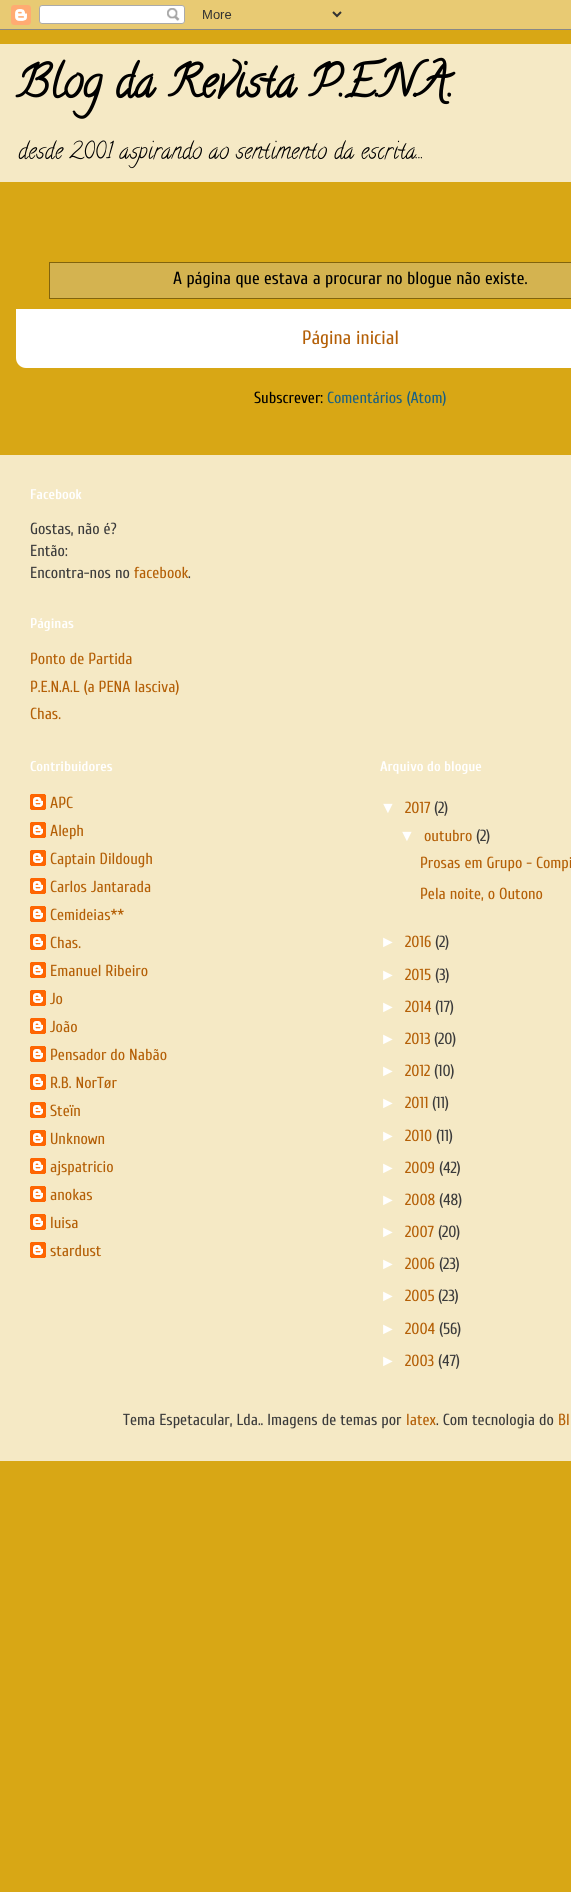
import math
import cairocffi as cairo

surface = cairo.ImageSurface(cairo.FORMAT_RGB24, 571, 1892)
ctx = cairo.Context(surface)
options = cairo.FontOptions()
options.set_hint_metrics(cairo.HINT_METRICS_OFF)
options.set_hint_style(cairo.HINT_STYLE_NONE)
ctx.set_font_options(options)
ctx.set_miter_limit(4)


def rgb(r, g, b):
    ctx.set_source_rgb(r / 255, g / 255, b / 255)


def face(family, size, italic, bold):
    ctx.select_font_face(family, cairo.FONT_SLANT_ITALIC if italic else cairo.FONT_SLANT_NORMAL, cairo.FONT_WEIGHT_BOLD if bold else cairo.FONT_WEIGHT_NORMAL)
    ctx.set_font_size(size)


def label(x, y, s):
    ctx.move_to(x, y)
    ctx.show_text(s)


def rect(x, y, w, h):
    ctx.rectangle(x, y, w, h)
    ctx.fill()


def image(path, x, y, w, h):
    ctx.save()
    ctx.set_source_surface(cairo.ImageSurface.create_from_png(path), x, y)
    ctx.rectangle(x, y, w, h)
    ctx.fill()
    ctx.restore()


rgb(216, 167, 21)
ctx.paint()
image('image0.png', 0, 0, 571, 30)
rgb(245, 233, 197)
rect(0, 44, 571, 138)
face('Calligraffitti', 45, 0, 1)
rgb(0, 0, 0)
label(16, 96, 'Blog da Revista P.E.N.A.')
face('Calligraffitti', 23, 0, 0)
label(18, 158, 'desde 2001 aspirando ao sentimento da escrita...')
ctx.rectangle(49.5, 262.5, 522, 36)
rgb(130, 100, 13)
ctx.set_line_width(1)
ctx.stroke()
rgb(212, 179, 80)
rect(50, 263, 521, 35)
face('Cuprum', 17.6, 0, 0)
rgb(0, 0, 0)
label(173, 284, 'A página que estava a procurar no blogue não existe.')
rgb(255, 255, 255)
ctx.new_path()
ctx.move_to(16, 309)
ctx.line_to(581, 309)
ctx.line_to(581, 358)
ctx.curve_to(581, 363.5, 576.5, 368, 571, 368)
ctx.line_to(26, 368)
ctx.curve_to(20.5, 368, 16, 363.5, 16, 358)
ctx.close_path()
ctx.fill()
face('Cuprum', 19.25, 0, 0)
rgb(180, 95, 6)
label(302, 344, 'Página inicial')
face('Cuprum', 16, 0, 0)
rgb(0, 0, 0)
label(254, 403, 'Subscrever:')
rgb(25, 96, 132)
label(327, 403, 'Comentários (Atom)')
rgb(245, 233, 197)
rect(0, 455, 571, 1006)
face('Cuprum', 14, 0, 1)
rgb(255, 255, 255)
label(30, 499, 'Facebook')
face('Cuprum', 16, 0, 0)
rgb(59, 59, 59)
label(30, 534, 'Gostas, não é?')
label(30, 556, 'Então:')
label(30, 578, 'Encontra-nos no')
rgb(180, 95, 6)
label(134, 578, 'facebook')
rgb(59, 59, 59)
label(188, 578, '.')
face('Cuprum', 14, 0, 1)
rgb(255, 255, 255)
label(30, 628, 'Páginas')
face('Cuprum', 16, 0, 0)
rgb(180, 95, 6)
label(30, 664, 'Ponto de Partida')
label(30, 692, 'P.E.N.A.L (a PENA lasciva)')
label(30, 719, 'Chas.')
face('Cuprum', 14, 0, 1)
rgb(255, 255, 255)
label(30, 771, 'Contribuidores')
image('image1.png', 30, 794, 16, 16)
face('Cuprum', 16, 0, 0)
rgb(180, 95, 6)
label(50, 808, 'APC')
image('image1.png', 30, 822, 16, 16)
label(50, 836, 'Aleph')
image('image1.png', 30, 850, 16, 16)
label(50, 864, 'Captain Dildough')
image('image1.png', 30, 878, 16, 16)
label(50, 892, 'Carlos Jantarada')
image('image1.png', 30, 906, 16, 16)
label(50, 920, 'Cemideias**')
image('image1.png', 30, 934, 16, 16)
label(50, 948, 'Chas.')
image('image1.png', 30, 962, 16, 16)
label(50, 976, 'Emanuel Ribeiro')
image('image1.png', 30, 990, 16, 16)
label(50, 1004, 'Jo')
image('image1.png', 30, 1018, 16, 16)
label(50, 1032, 'João')
image('image1.png', 30, 1046, 16, 16)
label(50, 1060, 'Pensador do Nabão')
image('image1.png', 30, 1074, 16, 16)
label(50, 1088, 'R.B. NorTør')
image('image1.png', 30, 1102, 16, 16)
label(50, 1116, 'Steïn')
image('image1.png', 30, 1130, 16, 16)
label(50, 1144, 'Unknown')
image('image1.png', 30, 1158, 16, 16)
label(50, 1172, 'ajspatricio')
image('image1.png', 30, 1186, 16, 16)
label(50, 1200, 'anokas')
image('image1.png', 30, 1214, 16, 16)
label(50, 1228, 'luisa')
image('image1.png', 30, 1242, 16, 16)
label(50, 1256, 'stardust')
face('Cuprum', 14, 0, 1)
rgb(255, 255, 255)
label(380, 771, 'Arquivo do blogue')
face('Liberation Sans', 16, 0, 0)
label(380, 813, '▼')
face('Cuprum', 16, 0, 0)
rgb(180, 95, 6)
label(405, 813, '2017')
rgb(59, 59, 59)
label(434, 813, '(2)')
face('Liberation Sans', 16, 0, 0)
rgb(255, 255, 255)
label(399, 841, '▼')
face('Cuprum', 16, 0, 0)
rgb(180, 95, 6)
label(424, 841, 'outubro')
rgb(59, 59, 59)
label(476, 841, '(2)')
rgb(180, 95, 6)
label(420, 868, 'Prosas em Grupo - Compi')
label(420, 899, 'Pela noite, o Outono')
face('Liberation Sans', 16, 0, 0)
rgb(255, 255, 255)
label(380, 947, '►')
face('Cuprum', 16, 0, 0)
rgb(180, 95, 6)
label(405, 947, '2016')
rgb(59, 59, 59)
label(435, 947, '(2)')
face('Liberation Sans', 16, 0, 0)
rgb(255, 255, 255)
label(380, 980, '►')
face('Cuprum', 16, 0, 0)
rgb(180, 95, 6)
label(405, 980, '2015')
rgb(59, 59, 59)
label(435, 980, '(3)')
face('Liberation Sans', 16, 0, 0)
rgb(255, 255, 255)
label(380, 1012, '►')
face('Cuprum', 16, 0, 0)
rgb(180, 95, 6)
label(405, 1012, '2014')
rgb(59, 59, 59)
label(435, 1012, '(17)')
face('Liberation Sans', 16, 0, 0)
rgb(255, 255, 255)
label(380, 1044, '►')
face('Cuprum', 16, 0, 0)
rgb(180, 95, 6)
label(405, 1044, '2013')
rgb(59, 59, 59)
label(434, 1044, '(20)')
face('Liberation Sans', 16, 0, 0)
rgb(255, 255, 255)
label(380, 1076, '►')
face('Cuprum', 16, 0, 0)
rgb(180, 95, 6)
label(405, 1076, '2012')
rgb(59, 59, 59)
label(434, 1076, '(10)')
face('Liberation Sans', 16, 0, 0)
rgb(255, 255, 255)
label(380, 1108, '►')
face('Cuprum', 16, 0, 0)
rgb(180, 95, 6)
label(405, 1108, '2011')
rgb(59, 59, 59)
label(432, 1108, '(11)')
face('Liberation Sans', 16, 0, 0)
rgb(255, 255, 255)
label(380, 1141, '►')
face('Cuprum', 16, 0, 0)
rgb(180, 95, 6)
label(405, 1141, '2010')
rgb(59, 59, 59)
label(436, 1141, '(11)')
face('Liberation Sans', 16, 0, 0)
rgb(255, 255, 255)
label(380, 1173, '►')
face('Cuprum', 16, 0, 0)
rgb(180, 95, 6)
label(405, 1173, '2009')
rgb(59, 59, 59)
label(439, 1173, '(42)')
face('Liberation Sans', 16, 0, 0)
rgb(255, 255, 255)
label(380, 1205, '►')
face('Cuprum', 16, 0, 0)
rgb(180, 95, 6)
label(405, 1205, '2008')
rgb(59, 59, 59)
label(439, 1205, '(48)')
face('Liberation Sans', 16, 0, 0)
rgb(255, 255, 255)
label(380, 1237, '►')
face('Cuprum', 16, 0, 0)
rgb(180, 95, 6)
label(405, 1237, '2007')
rgb(59, 59, 59)
label(438, 1237, '(20)')
face('Liberation Sans', 16, 0, 0)
rgb(255, 255, 255)
label(380, 1269, '►')
face('Cuprum', 16, 0, 0)
rgb(180, 95, 6)
label(405, 1269, '2006')
rgb(59, 59, 59)
label(439, 1269, '(23)')
face('Liberation Sans', 16, 0, 0)
rgb(255, 255, 255)
label(380, 1301, '►')
face('Cuprum', 16, 0, 0)
rgb(180, 95, 6)
label(405, 1301, '2005')
rgb(59, 59, 59)
label(438, 1301, '(23)')
face('Liberation Sans', 16, 0, 0)
rgb(255, 255, 255)
label(380, 1334, '►')
face('Cuprum', 16, 0, 0)
rgb(180, 95, 6)
label(405, 1334, '2004')
rgb(59, 59, 59)
label(439, 1334, '(56)')
face('Liberation Sans', 16, 0, 0)
rgb(255, 255, 255)
label(380, 1366, '►')
face('Cuprum', 16, 0, 0)
rgb(180, 95, 6)
label(405, 1366, '2003')
rgb(59, 59, 59)
label(438, 1366, '(47)')
label(123, 1425, 'Tema Espetacular, Lda.. Imagens de temas por')
rgb(180, 95, 6)
label(406, 1425, 'latex')
rgb(59, 59, 59)
label(436, 1425, '. Com tecnologia do')
rgb(180, 95, 6)
label(558, 1425, 'Bl')
surface.write_to_png('render.png')
